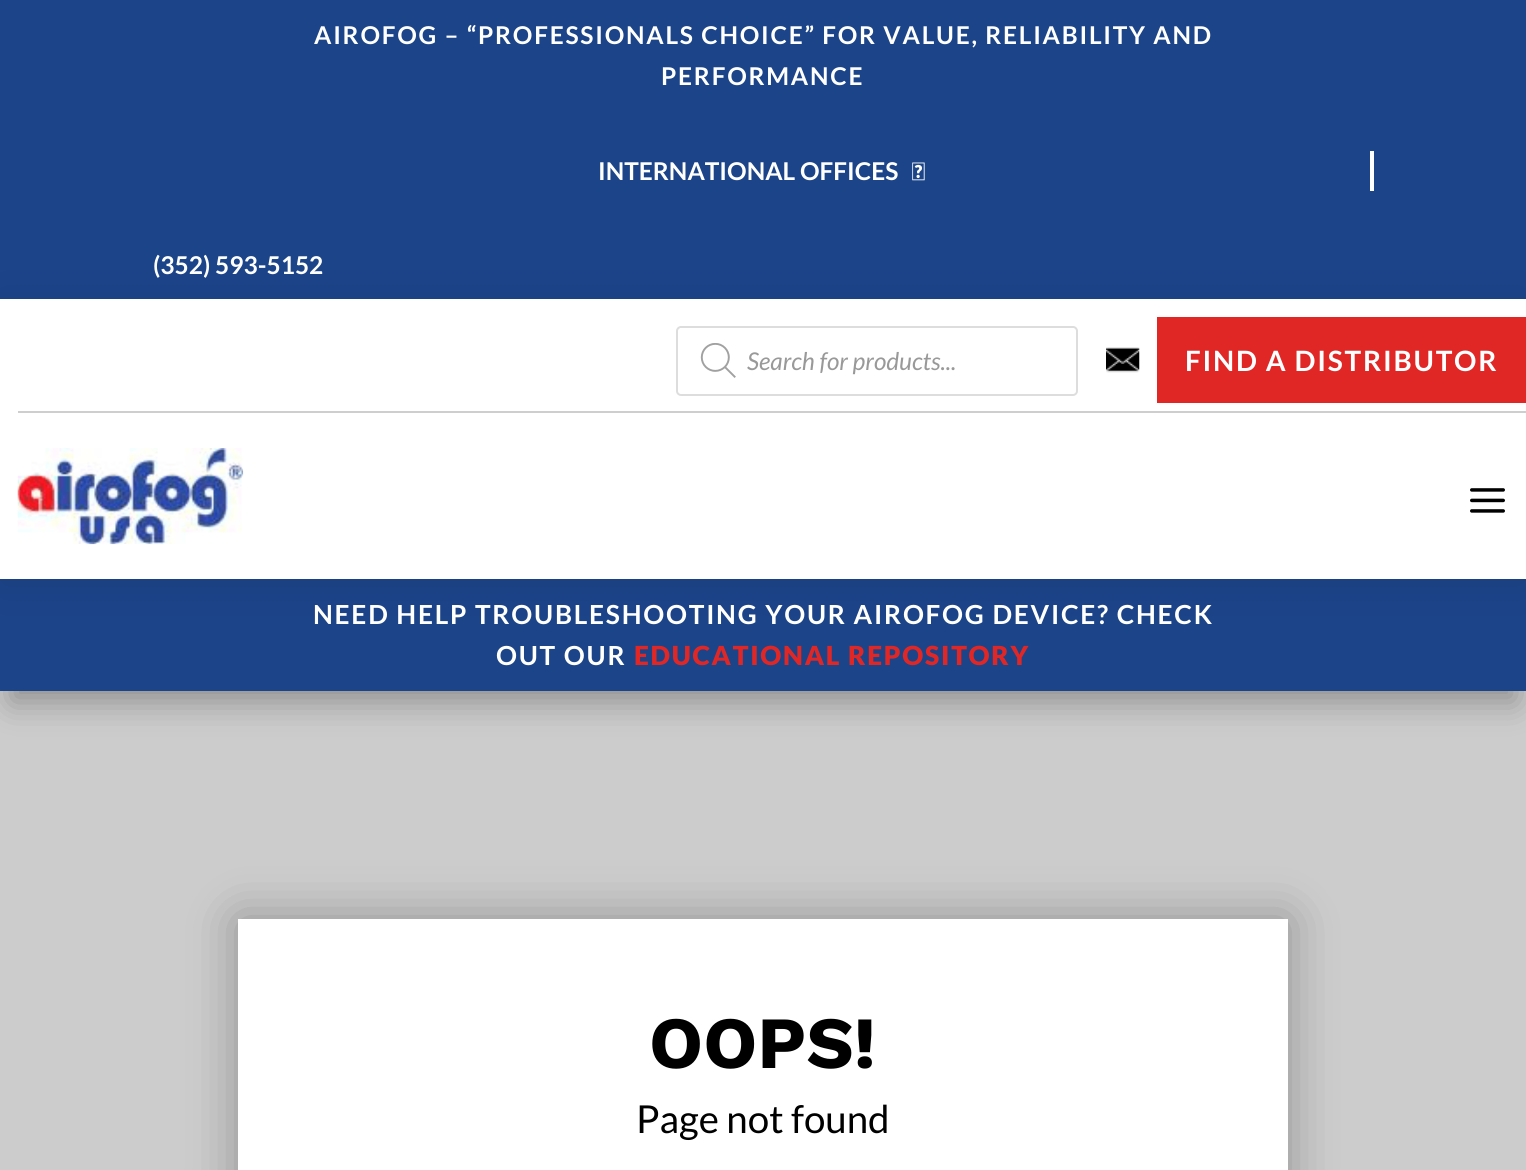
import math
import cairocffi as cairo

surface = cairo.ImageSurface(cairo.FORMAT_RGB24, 1526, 1170)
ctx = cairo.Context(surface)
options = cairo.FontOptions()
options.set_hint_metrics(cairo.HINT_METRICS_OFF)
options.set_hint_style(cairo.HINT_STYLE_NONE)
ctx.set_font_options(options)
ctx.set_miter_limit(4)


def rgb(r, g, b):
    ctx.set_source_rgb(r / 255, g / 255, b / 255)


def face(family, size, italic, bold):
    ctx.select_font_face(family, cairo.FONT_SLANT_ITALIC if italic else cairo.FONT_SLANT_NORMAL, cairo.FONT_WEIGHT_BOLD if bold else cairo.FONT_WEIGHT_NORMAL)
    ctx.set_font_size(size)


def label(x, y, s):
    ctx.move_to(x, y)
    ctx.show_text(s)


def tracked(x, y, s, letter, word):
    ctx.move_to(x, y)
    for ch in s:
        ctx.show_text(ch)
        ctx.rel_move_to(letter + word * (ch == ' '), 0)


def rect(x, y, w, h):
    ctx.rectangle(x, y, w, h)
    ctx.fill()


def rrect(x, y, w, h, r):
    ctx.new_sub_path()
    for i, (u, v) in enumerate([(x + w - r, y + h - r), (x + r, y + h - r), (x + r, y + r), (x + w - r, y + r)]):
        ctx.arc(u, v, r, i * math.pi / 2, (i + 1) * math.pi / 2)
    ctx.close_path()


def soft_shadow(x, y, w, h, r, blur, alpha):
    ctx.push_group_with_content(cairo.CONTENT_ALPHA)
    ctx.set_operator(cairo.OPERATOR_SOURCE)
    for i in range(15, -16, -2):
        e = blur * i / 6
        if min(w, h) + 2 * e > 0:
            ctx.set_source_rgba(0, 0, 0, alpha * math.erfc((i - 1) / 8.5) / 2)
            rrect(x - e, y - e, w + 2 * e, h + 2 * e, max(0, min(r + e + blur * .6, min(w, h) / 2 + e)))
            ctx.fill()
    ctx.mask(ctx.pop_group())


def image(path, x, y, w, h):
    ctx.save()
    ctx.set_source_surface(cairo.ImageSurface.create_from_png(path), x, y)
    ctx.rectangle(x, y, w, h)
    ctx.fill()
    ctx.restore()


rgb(204, 204, 204)
ctx.paint()
rgb(28, 68, 137)
rect(0, 0, 1526, 299)
face('Lato', 24.5, 0, 1)
rgb(255, 255, 255)
tracked(314, 44, 'AIROFOG – “PROFESSIONALS CHOICE” FOR VALUE, RELIABILITY AND', 1.75, 0)
tracked(661, 85, 'PERFORMANCE', 1.75, 0)
rect(1370, 151, 4, 40)
label(598, 180, 'INTERNATIONAL OFFICES')
image('image0.png', 912, 162, 13, 19)
label(153, 274, '(352) 593-5152')
rgb(0, 0, 0)
soft_shadow(11, 611, 1505, 91, 0, 16, 0.3)
rgb(28, 68, 137)
rect(0, 579, 1526, 112)
rgb(0, 0, 0)
soft_shadow(0, 303, 1526, 280, 0, 22, 0.1)
rgb(255, 255, 255)
rect(0, 299, 1526, 280)
rrect(677, 327, 400, 68, 4)
rgb(221, 221, 221)
ctx.stroke()
image('image1.png', 700, 343, 36, 35)
face('Lato', 24.5, 1, 0)
rgb(153, 153, 153)
label(747, 370, 'Search for products...')
image('image2.png', 1106, 347, 34, 26)
rgb(225, 39, 37)
rect(1157, 317, 369, 86)
face('Lato', 28, 0, 1)
rgb(255, 255, 255)
tracked(1185, 371, 'FIND A DISTRIBUTOR', 1.75, 0)
rgb(206, 206, 206)
rect(18, 411, 1508, 2)
image('image3.png', 17, 448, 227, 97)
image('image4.png', 1470, 488, 35, 25)
face('Lato', 26.25, 0, 1)
rgb(255, 255, 255)
tracked(313, 624, 'NEED HELP TROUBLESHOOTING YOUR AIROFOG DEVICE? CHECK', 1.75, 0)
tracked(496, 665, 'OUT OUR', 1.75, 0)
face('Lato Black', 26.25, 0, 0)
rgb(225, 39, 37)
tracked(634, 665, 'EDUCATIONAL REPOSITORY', 1.75, 0)
rgb(0, 0, 0)
soft_shadow(238, 919, 1050, 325, 0, 24.5, 0.3)
rgb(255, 255, 255)
rect(238, 919, 1050, 251)
face('Work Sans', 73.5, 0, 1)
rgb(0, 0, 0)
label(649, 1068, 'OOPS!')
face('Lato', 38.5, 0, 0)
label(636, 1133, 'Page not found')
surface.write_to_png('render.png')
